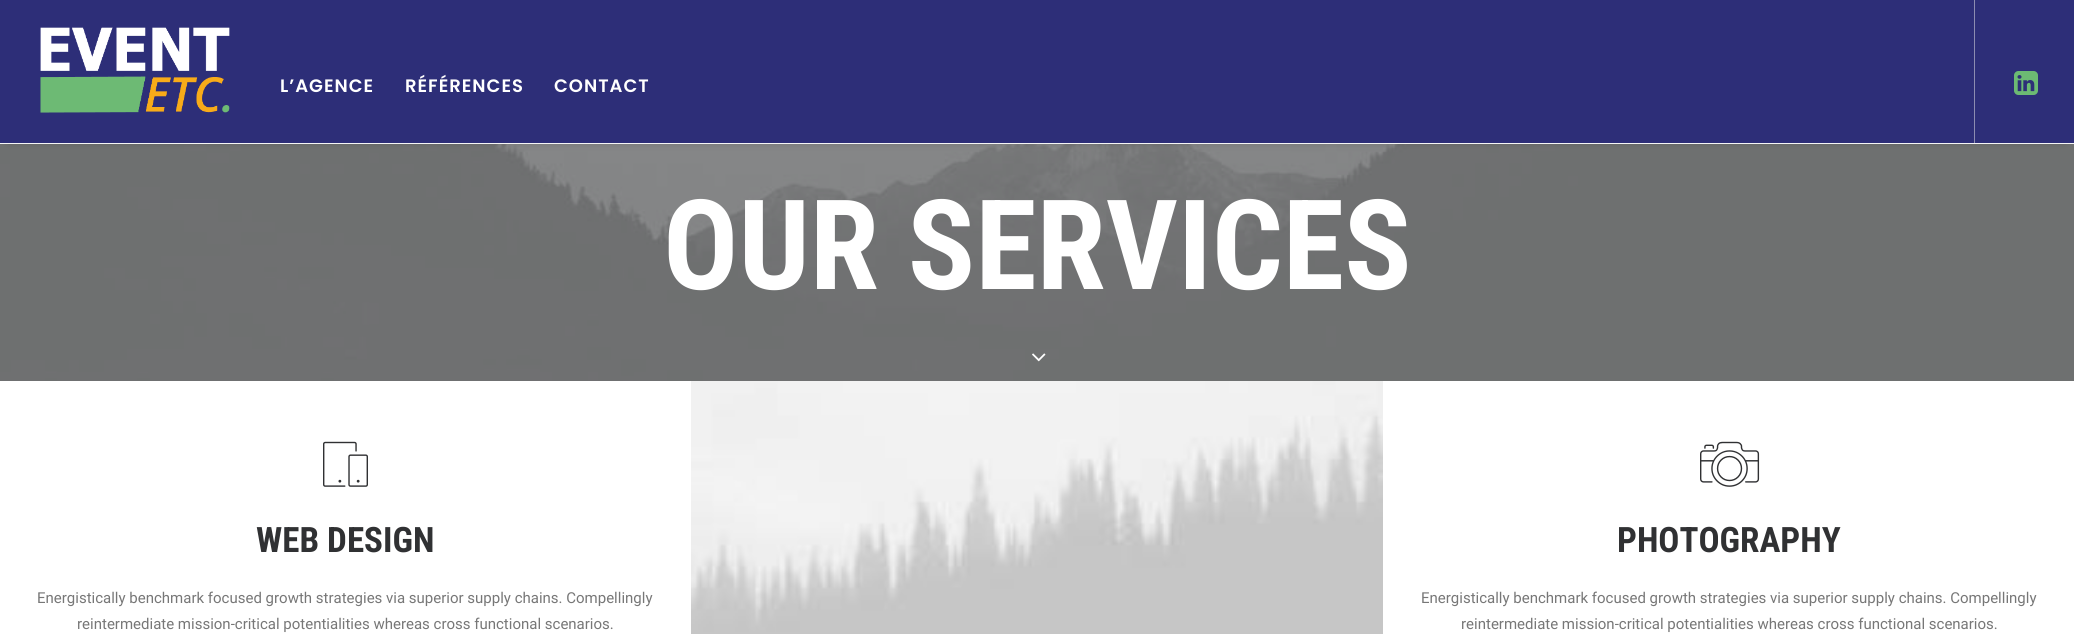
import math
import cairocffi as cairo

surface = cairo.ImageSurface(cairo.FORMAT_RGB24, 2074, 634)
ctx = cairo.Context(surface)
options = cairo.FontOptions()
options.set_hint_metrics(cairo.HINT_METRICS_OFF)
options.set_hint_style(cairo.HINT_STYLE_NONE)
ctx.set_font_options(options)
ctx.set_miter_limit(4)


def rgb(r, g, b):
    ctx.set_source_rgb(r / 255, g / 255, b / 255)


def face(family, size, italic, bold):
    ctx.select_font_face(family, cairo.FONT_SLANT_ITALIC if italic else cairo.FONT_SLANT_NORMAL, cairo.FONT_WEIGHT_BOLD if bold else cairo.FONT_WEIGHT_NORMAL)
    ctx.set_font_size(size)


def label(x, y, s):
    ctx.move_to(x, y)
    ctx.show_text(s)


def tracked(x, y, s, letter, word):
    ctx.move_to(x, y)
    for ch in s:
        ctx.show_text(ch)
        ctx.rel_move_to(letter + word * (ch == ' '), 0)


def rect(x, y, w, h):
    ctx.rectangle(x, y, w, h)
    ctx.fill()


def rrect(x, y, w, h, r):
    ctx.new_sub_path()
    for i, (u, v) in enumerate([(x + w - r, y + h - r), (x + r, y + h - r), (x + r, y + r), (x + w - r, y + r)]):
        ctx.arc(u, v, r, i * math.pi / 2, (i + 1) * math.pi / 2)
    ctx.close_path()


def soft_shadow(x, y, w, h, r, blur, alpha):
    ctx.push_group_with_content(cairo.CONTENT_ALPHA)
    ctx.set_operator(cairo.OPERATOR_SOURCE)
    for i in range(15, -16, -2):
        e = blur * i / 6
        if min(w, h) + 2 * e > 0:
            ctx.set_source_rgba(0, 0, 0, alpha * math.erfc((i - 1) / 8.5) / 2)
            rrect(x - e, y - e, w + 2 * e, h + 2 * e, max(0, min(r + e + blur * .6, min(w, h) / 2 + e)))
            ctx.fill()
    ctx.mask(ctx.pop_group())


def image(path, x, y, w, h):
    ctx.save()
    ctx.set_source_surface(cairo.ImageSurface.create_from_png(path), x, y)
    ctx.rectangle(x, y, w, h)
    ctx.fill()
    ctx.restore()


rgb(255, 255, 255)
ctx.paint()
image('image2.png', 0, 144, 2074, 237)
rgb(0, 0, 0)
soft_shadow(9, 14, 2056, 124, 0, 5, 0.6)
rgb(245, 245, 245)
rect(0, 143, 2074, 1)
rgb(45, 46, 120)
rect(0, 0, 2074, 143)
image('image0.png', 40, 27, 190, 86)
face('Poppins SemiBold', 18, 0, 0)
rgb(255, 255, 255)
tracked(280, 92, 'L’AGENCE', 1, 0)
tracked(405, 92, 'RÉFÉRENCES', 1, 0)
tracked(554, 92, 'CONTACT', 1, 0)
rgb(140, 140, 177)
rect(1974, 0, 1, 143)
image('image1.png', 2014, 71, 24, 24)
face('Roboto Condensed', 125, 0, 1)
rgb(255, 255, 255)
label(663, 289, 'OUR SERVICES')
image('image3.png', 1032, 353, 14, 9)
image('image4.png', 323, 441, 45, 46)
face('Roboto Condensed', 35, 0, 1)
rgb(48, 49, 51)
label(256, 552, 'WEB DESIGN')
face('Roboto', 15, 0, 0)
rgb(119, 119, 119)
label(37, 603, 'Energistically benchmark focused growth strategies via superior supply chains. Compellingly')
label(77, 629, 'reintermediate mission-critical potentialities whereas cross functional scenarios.')
image('image5.png', 691, 381, 692, 253)
image('image6.png', 1700, 441, 60, 46)
face('Roboto Condensed', 35, 0, 1)
rgb(48, 49, 51)
label(1617, 552, 'PHOTOGRAPHY')
face('Roboto', 15, 0, 0)
rgb(119, 119, 119)
label(1421, 603, 'Energistically benchmark focused growth strategies via superior supply chains. Compellingly')
label(1461, 629, 'reintermediate mission-critical potentialities whereas cross functional scenarios.')
surface.write_to_png('render.png')
